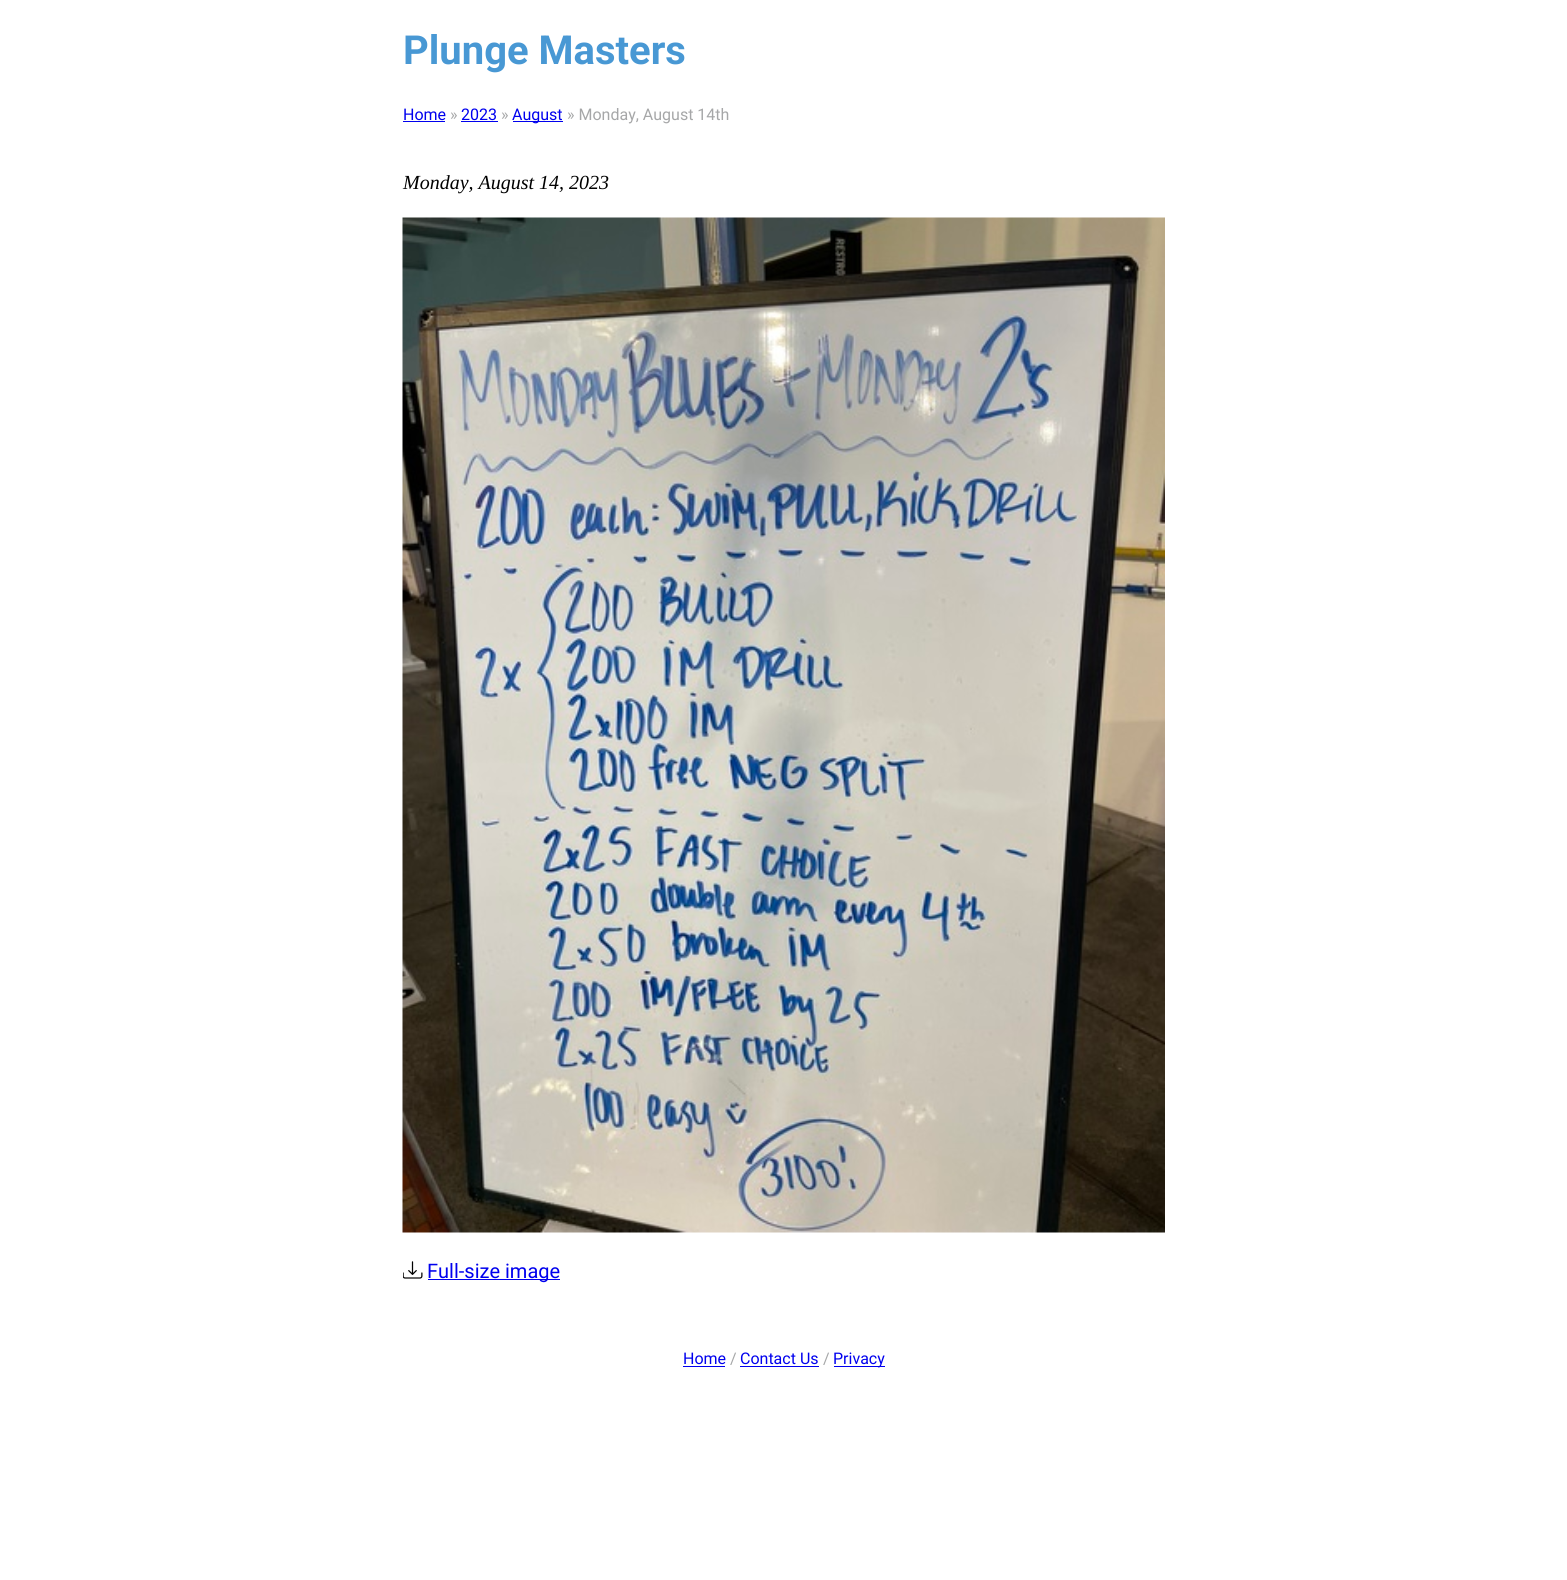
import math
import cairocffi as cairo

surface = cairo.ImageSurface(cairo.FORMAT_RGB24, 1567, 1580)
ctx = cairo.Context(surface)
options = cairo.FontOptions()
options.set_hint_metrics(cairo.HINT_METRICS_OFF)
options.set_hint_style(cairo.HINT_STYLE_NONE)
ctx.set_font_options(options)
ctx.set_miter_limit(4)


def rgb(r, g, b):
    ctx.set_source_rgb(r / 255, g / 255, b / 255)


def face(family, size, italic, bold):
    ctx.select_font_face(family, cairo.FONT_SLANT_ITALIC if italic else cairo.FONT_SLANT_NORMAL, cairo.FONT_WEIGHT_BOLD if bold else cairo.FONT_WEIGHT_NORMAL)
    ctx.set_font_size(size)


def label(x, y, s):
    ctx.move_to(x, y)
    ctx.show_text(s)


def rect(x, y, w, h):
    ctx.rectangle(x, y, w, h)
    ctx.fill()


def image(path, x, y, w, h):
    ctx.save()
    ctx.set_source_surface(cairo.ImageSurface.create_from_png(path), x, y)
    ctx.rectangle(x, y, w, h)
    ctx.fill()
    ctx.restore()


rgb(255, 255, 255)
ctx.paint()
face('Roboto', 40, 0, 1)
rgb(72, 152, 212)
label(403, 64, 'Plunge Masters')
face('Roboto', 16, 0, 0)
rgb(0, 0, 238)
label(403, 120, 'Home')
rect(403, 121, 42, 1)
rgb(166, 167, 168)
label(450, 120, '»')
rgb(0, 0, 238)
label(461, 120, '2023')
rect(461, 121, 37, 1)
rgb(166, 167, 168)
label(501, 120, '»')
rgb(0, 0, 238)
rect(513, 121, 50, 1)
label(512, 120, 'August')
rgb(166, 167, 168)
label(567, 120, '» Monday, August 14th')
face('Liberation Serif', 20, 1, 0)
rgb(0, 0, 0)
label(403, 189, 'Monday, August 14, 2023')
image('image0.png', 402, 217, 763, 1016)
image('image1.png', 403, 1261, 20, 18)
rgb(0, 0, 238)
rect(428, 1279, 132, 1)
face('Roboto', 20, 0, 0)
label(427, 1278, 'Full-size image')
face('Roboto', 16, 0, 0)
label(683, 1364, 'Home')
rect(683, 1366, 42, 1)
rgb(166, 167, 168)
label(730, 1364, '/')
rgb(0, 0, 238)
label(740, 1364, 'Contact Us')
rect(740, 1366, 79, 1)
rgb(166, 167, 168)
label(823, 1364, '/')
rgb(0, 0, 238)
rect(834, 1366, 51, 1)
label(833, 1364, 'Privacy')
surface.write_to_png('render.png')
